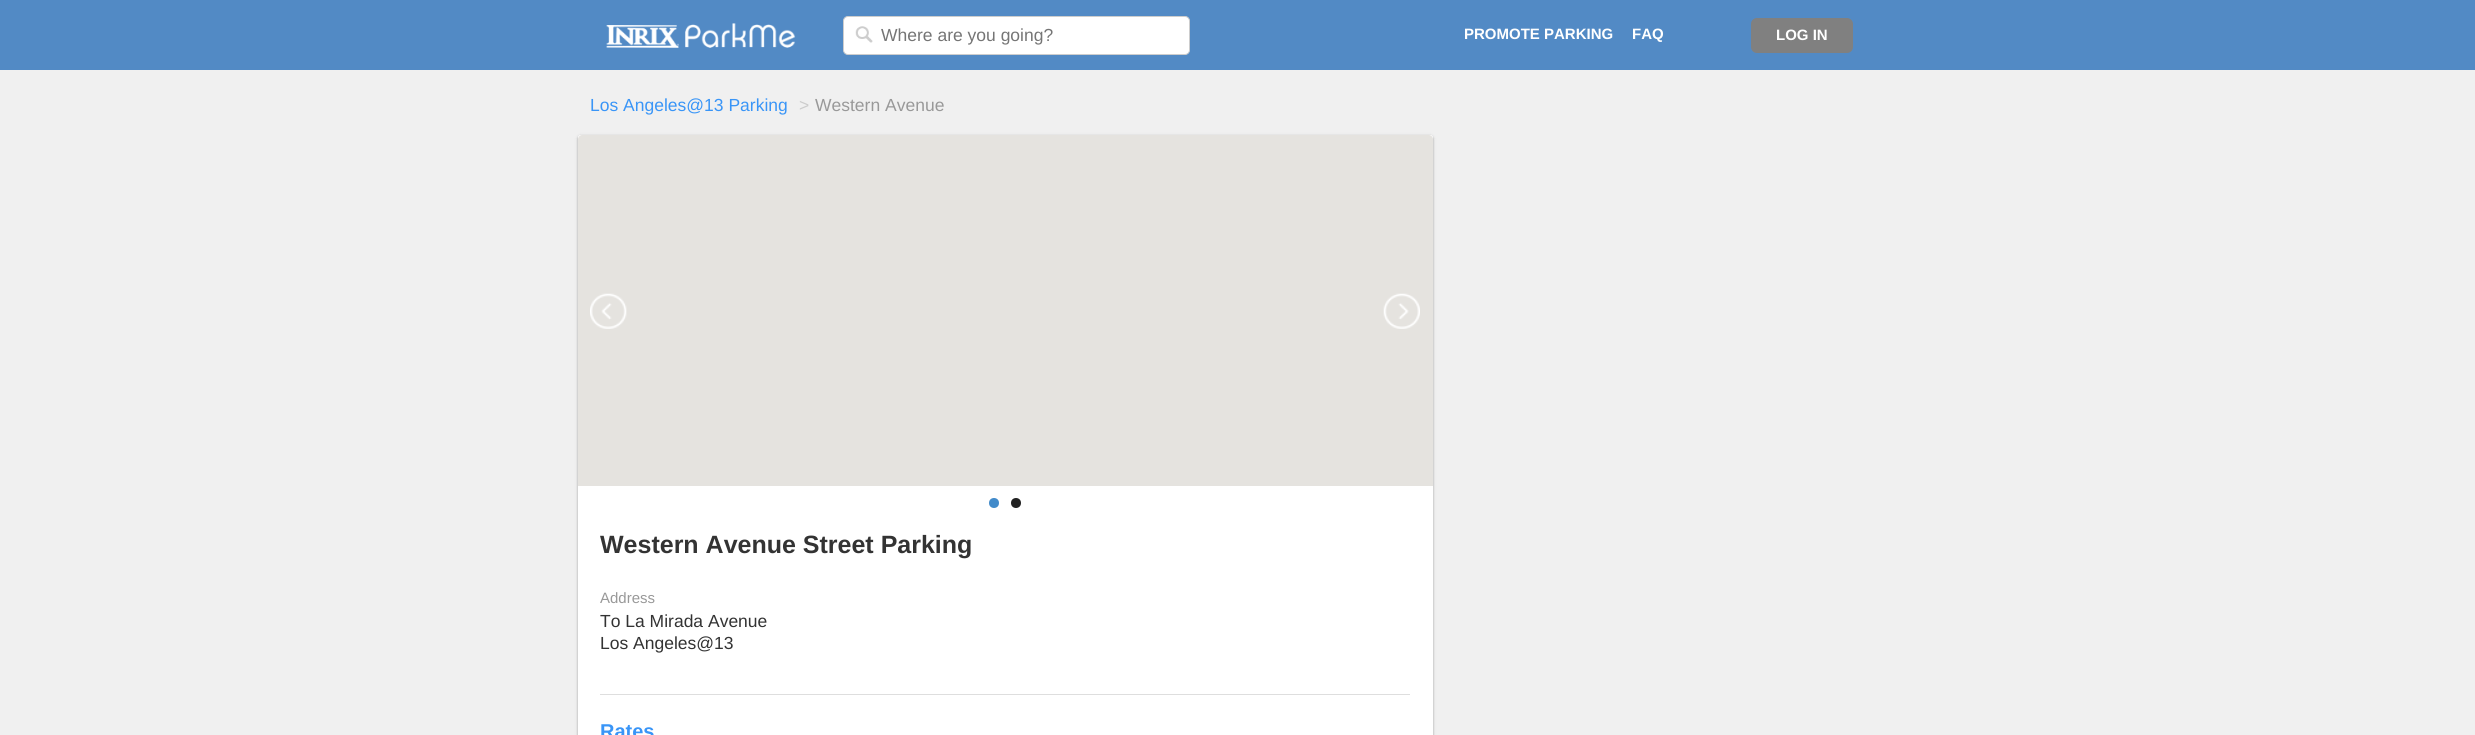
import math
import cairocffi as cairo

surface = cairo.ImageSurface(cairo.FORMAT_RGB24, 2475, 735)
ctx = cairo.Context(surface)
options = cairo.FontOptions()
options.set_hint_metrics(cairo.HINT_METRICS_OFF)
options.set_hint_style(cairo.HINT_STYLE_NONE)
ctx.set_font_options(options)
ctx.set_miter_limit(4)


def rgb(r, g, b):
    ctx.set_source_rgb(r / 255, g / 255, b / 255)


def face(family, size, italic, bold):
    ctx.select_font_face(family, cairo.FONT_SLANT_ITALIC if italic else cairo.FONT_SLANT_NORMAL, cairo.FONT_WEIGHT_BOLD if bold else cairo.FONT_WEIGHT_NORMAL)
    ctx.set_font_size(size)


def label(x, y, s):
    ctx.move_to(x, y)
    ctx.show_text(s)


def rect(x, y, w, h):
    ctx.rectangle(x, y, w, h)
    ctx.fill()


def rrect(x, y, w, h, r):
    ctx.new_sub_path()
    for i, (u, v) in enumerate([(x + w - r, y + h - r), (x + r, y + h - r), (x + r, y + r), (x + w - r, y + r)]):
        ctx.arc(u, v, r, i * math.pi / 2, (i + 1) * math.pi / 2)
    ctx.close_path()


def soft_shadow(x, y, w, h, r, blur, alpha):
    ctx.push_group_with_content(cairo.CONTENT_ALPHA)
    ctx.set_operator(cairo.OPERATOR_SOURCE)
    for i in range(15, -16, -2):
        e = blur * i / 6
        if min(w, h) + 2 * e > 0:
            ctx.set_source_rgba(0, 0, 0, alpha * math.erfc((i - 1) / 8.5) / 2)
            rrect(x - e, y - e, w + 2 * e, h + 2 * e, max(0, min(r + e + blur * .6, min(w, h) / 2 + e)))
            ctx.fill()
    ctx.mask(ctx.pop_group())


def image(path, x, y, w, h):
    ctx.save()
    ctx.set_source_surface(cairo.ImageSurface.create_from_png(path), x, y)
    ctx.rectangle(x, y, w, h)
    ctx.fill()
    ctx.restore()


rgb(240, 240, 240)
ctx.paint()
rgb(82, 138, 197)
rect(0, 0, 2475, 70)
image('image0.png', 606, 23, 190, 25)
rgb(255, 255, 255)
rrect(843.5, 16.5, 346, 38, 4.5)
ctx.fill_preserve()
rgb(205, 205, 205)
ctx.set_line_width(1)
ctx.stroke()
image('image1.png', 855, 26, 18, 17)
face('Liberation Sans', 17.5, 0, 0)
rgb(117, 117, 117)
label(881, 41, 'Where are you going?')
face('Liberation Sans', 15, 0, 1)
rgb(255, 255, 255)
label(1464, 39, 'PROMOTE PARKING')
label(1632, 39, 'FAQ')
rgb(128, 128, 128)
rrect(1751, 18, 102, 35, 6)
ctx.fill()
rgb(255, 255, 255)
label(1776, 40, 'LOG IN')
face('Liberation Sans', 17.5, 0, 0)
rgb(57, 149, 247)
label(590, 111, 'Los Angeles@13 Parking')
rgb(204, 204, 204)
label(799, 111, '>')
rgb(153, 153, 153)
label(815, 111, 'Western Avenue')
rgb(0, 0, 0)
soft_shadow(578, 136, 855, 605, 2.5, 1, 0.24)
soft_shadow(578, 136, 855, 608, 2.5, 2, 0.12)
rgb(255, 255, 255)
rrect(578, 135, 855, 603, 2.5)
ctx.fill()
rgb(229, 227, 223)
ctx.new_path()
ctx.move_to(582, 135)
ctx.line_to(1429, 135)
ctx.curve_to(1431, 135, 1433, 137, 1433, 139)
ctx.line_to(1433, 486)
ctx.line_to(578, 486)
ctx.line_to(578, 139)
ctx.curve_to(578, 137, 580, 135, 582, 135)
ctx.close_path()
ctx.fill()
image('image2.png', 590, 293, 37, 36)
image('image3.png', 1383, 293, 37, 36)
rgb(66, 139, 202)
ctx.arc(994, 503, 5, 0, 2 * math.pi)
ctx.fill()
rgb(34, 34, 34)
ctx.arc(1016, 503, 5, 0, 2 * math.pi)
ctx.fill()
face('Liberation Sans', 25, 0, 1)
rgb(51, 51, 51)
label(600, 553, 'Western Avenue Street Parking')
face('Liberation Sans', 15, 0, 0)
rgb(153, 153, 153)
label(600, 603, 'Address')
face('Liberation Sans', 17.5, 0, 0)
rgb(51, 51, 51)
label(600, 627, 'To La Mirada Avenue')
label(600, 649, 'Los Angeles@13')
rgb(222, 222, 222)
rect(600, 694, 810, 1)
face('Liberation Sans', 20, 0, 1)
rgb(57, 149, 247)
label(600, 738, 'Rates')
surface.write_to_png('render.png')
